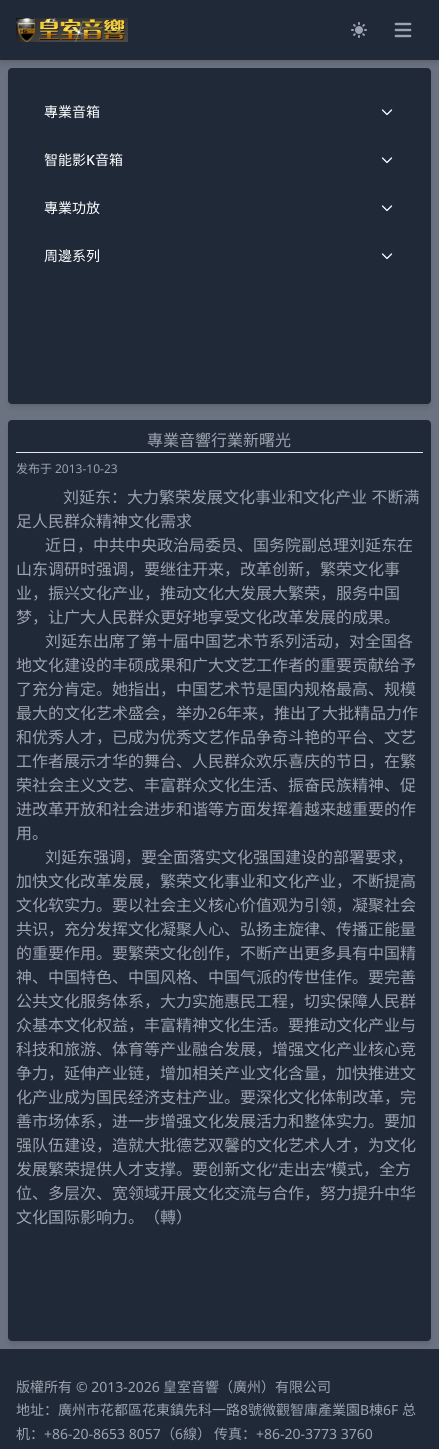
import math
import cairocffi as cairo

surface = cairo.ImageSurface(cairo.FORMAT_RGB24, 439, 1449)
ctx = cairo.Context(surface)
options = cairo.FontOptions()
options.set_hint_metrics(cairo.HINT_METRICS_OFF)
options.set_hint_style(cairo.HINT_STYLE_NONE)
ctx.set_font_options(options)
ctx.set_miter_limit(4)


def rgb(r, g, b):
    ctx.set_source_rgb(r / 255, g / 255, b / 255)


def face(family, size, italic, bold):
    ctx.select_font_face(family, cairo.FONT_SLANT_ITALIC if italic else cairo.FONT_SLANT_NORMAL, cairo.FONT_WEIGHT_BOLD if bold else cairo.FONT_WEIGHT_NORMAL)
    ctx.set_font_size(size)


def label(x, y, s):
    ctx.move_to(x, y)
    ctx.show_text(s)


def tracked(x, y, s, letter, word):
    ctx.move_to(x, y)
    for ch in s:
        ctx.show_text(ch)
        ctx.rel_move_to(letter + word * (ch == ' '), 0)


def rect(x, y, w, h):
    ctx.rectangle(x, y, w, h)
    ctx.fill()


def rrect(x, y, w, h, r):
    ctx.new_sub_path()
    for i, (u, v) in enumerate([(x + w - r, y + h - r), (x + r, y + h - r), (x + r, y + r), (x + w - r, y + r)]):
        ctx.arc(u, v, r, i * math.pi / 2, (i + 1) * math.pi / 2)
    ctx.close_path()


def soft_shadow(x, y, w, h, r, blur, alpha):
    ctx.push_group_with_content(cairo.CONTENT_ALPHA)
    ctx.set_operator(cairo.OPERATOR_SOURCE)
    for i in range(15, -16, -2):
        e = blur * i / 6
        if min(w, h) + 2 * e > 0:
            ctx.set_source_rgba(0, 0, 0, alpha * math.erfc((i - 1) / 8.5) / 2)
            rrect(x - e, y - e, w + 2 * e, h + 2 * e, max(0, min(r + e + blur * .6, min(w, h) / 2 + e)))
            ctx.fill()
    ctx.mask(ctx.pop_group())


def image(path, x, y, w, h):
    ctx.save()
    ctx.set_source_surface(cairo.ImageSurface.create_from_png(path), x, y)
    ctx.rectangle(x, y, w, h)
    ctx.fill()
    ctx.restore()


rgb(107, 114, 128)
ctx.paint()
rgb(0, 0, 0)
soft_shadow(2, 4, 435, 56, 0, 2, 0.1)
soft_shadow(10, 72, 419, 332, 2, 2, 0.1)
soft_shadow(9, 73, 421, 334, 3, 3, 0.1)
rgb(31, 41, 55)
rrect(8, 68, 423, 336, 4)
ctx.fill()
rgb(0, 0, 0)
soft_shadow(1, 5, 437, 58, 0, 3, 0.1)
rgb(31, 41, 55)
rect(0, 0, 439, 60)
image('image0.png', 16, 18, 19, 24)
image('image1.png', 35, 18, 93, 24)
image('image2.png', 351, 22, 16, 16)
image('image3.png', 394, 22, 18, 16)
face('Noto Sans CJK SC', 14, 0, 0)
rgb(255, 255, 255)
label(44, 117, '專業音箱')
ctx.new_path()
ctx.move_to(391.5, 110)
ctx.line_to(387, 114.5)
ctx.line_to(382.5, 110)
ctx.move_to(391.5, 158)
ctx.line_to(387, 162.5)
ctx.line_to(382.5, 158)
ctx.set_line_width(1.3)
ctx.set_line_cap(cairo.LINE_CAP_ROUND)
ctx.set_line_join(cairo.LINE_JOIN_ROUND)
ctx.stroke()
label(44, 165, '智能影')
face('Noto Sans Medium', 14, 0, 0)
label(86, 165, 'K')
face('Noto Sans CJK SC', 14, 0, 0)
label(95, 165, '音箱')
label(44, 213, '專業功放')
ctx.new_path()
ctx.move_to(391.5, 206)
ctx.line_to(387, 210.5)
ctx.line_to(382.5, 206)
ctx.move_to(391.5, 254)
ctx.line_to(387, 258.5)
ctx.line_to(382.5, 254)
ctx.stroke()
label(44, 261, '周邊系列')
rgb(0, 0, 0)
soft_shadow(10, 424, 419, 917, 2, 2, 0.1)
rgb(31, 41, 55)
rect(0, 1349, 439, 100)
rgb(0, 0, 0)
soft_shadow(9, 425, 421, 919, 3, 3, 0.1)
rgb(31, 41, 55)
rrect(8, 420, 423, 921, 4)
ctx.fill()
face('Noto Sans CJK SC', 16, 0, 0)
rgb(156, 163, 175)
label(147, 446, '專業音響行業新曙光')
rgb(229, 231, 235)
rect(16, 452, 407, 1)
face('Noto Sans CJK SC', 12, 0, 0)
rgb(156, 163, 175)
label(16, 473, '发布于')
face('Noto Sans', 12, 0, 0)
label(55, 473, '2013-10-23')
face('Noto Sans CJK SC', 16, 0, 0)
tracked(63, 503, '刘延东：大力繁荣发展文化事业和文化产业 不断满', 0, 1)
label(16, 527, '足人民群众精神文化需求')
label(45, 551, '近日，中共中央政治局委员、国务院副总理刘延东在')
label(16, 575, '山东调研时强调，要继往开来，改革创新，繁荣文化事')
label(16, 599, '业，振兴文化产业，推动文化大发展大繁荣，服务中国')
label(16, 623, '梦，让广大人民群众更好地享受文化改革发展的成果。')
label(45, 647, '刘延东出席了第十届中国艺术节系列活动，对全国各')
label(16, 671, '地文化建设的丰硕成果和广大文艺工作者的重要贡献给予')
label(16, 695, '了充分肯定。她指出，中国艺术节是国内规格最高、规模')
label(16, 719, '最大的文化艺术盛会，举办')
face('Noto Sans', 16, 0, 0)
label(208, 719, '26')
face('Noto Sans CJK SC', 16, 0, 0)
label(226, 719, '年来，推出了大批精品力作')
label(16, 743, '和优秀人才，已成为优秀文艺作品争奇斗艳的平台、文艺')
label(16, 767, '工作者展示才华的舞台、人民群众欢乐喜庆的节日，在繁')
label(16, 791, '荣社会主义文艺、丰富群众文化生活、振奋民族精神、促')
label(16, 815, '进改革开放和社会进步和谐等方面发挥着越来越重要的作')
label(16, 839, '用。')
label(45, 863, '刘延东强调，要全面落实文化强国建设的部署要求，')
label(16, 887, '加快文化改革发展，繁荣文化事业和文化产业，不断提高')
label(16, 911, '文化软实力。要以社会主义核心价值观为引领，凝聚社会')
label(16, 935, '共识，充分发挥文化凝聚人心、弘扬主旋律、传播正能量')
label(16, 959, '的重要作用。要繁荣文化创作，不断产出更多具有中国精')
label(16, 983, '神、中国特色、中国风格、中国气派的传世佳作。要完善')
label(16, 1007, '公共文化服务体系，大力实施惠民工程，切实保障人民群')
label(16, 1031, '众基本文化权益，丰富精神文化生活。要推动文化产业与')
label(16, 1055, '科技和旅游、体育等产业融合发展，增强文化产业核心竞')
label(16, 1079, '争力，延伸产业链，增加相关产业文化含量，加快推进文')
label(16, 1103, '化产业成为国民经济支柱产业。要深化文化体制改革，完')
label(16, 1127, '善市场体系，进一步增强文化发展活力和整体实力。要加')
label(16, 1151, '强队伍建设，造就大批德艺双馨的文化艺术人才，为文化')
label(16, 1175, '发展繁荣提供人才支撑。要创新文化')
face('Noto Sans', 16, 0, 0)
label(272, 1175, '“')
face('Noto Sans CJK SC', 16, 0, 0)
label(278, 1175, '走出去')
face('Noto Sans', 16, 0, 0)
label(326, 1175, '”')
face('Noto Sans CJK SC', 16, 0, 0)
label(331, 1175, '模式，全方')
label(16, 1199, '位、多层次、宽领域开展文化交流与合作，努力提升中华')
label(16, 1223, '文化国际影响力。（轉）')
face('Noto Sans CJK SC', 14, 0, 0)
label(16, 1392, '版權所有')
face('Noto Sans', 14, 0, 0)
label(76, 1392, '© 2013-2026')
face('Noto Sans CJK SC', 14, 0, 0)
label(163, 1392, '皇室音響（廣州）有限公司')
label(16, 1415, '地址：廣州市花都區花東鎮先科一路')
face('Noto Sans', 14, 0, 0)
label(240, 1415, '8')
face('Noto Sans CJK SC', 14, 0, 0)
label(248, 1415, '號微觀智庫產業園')
face('Noto Sans', 14, 0, 0)
label(360, 1415, 'B')
face('Noto Sans CJK SC', 14, 0, 0)
label(369, 1415, '棟')
face('Noto Sans', 14, 0, 0)
label(383, 1415, '6F')
face('Noto Sans CJK SC', 14, 0, 0)
label(402, 1415, '总')
label(16, 1439, '机：')
face('Noto Sans', 14, 0, 0)
label(44, 1439, '+86-20-8653 8057')
face('Noto Sans CJK SC', 14, 0, 0)
label(161, 1439, '（')
face('Noto Sans', 14, 0, 0)
label(175, 1439, '6')
face('Noto Sans CJK SC', 14, 0, 0)
label(183, 1439, '線）')
label(214, 1439, '传真：')
face('Noto Sans', 14, 0, 0)
label(256, 1439, '+86-20-3773 3760')
surface.write_to_png('render.png')
